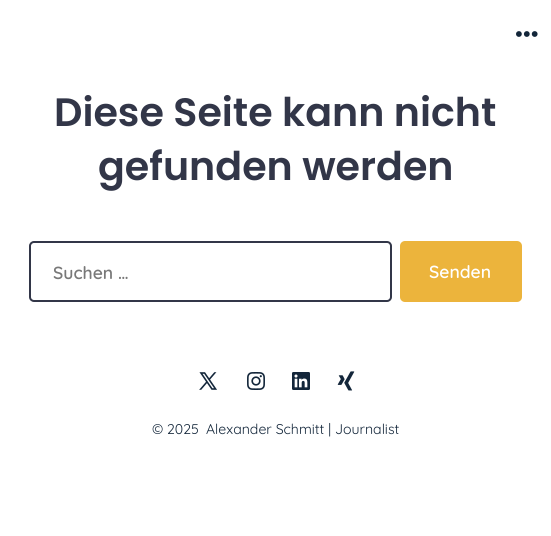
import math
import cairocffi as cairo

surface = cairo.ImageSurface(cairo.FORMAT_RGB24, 551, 536)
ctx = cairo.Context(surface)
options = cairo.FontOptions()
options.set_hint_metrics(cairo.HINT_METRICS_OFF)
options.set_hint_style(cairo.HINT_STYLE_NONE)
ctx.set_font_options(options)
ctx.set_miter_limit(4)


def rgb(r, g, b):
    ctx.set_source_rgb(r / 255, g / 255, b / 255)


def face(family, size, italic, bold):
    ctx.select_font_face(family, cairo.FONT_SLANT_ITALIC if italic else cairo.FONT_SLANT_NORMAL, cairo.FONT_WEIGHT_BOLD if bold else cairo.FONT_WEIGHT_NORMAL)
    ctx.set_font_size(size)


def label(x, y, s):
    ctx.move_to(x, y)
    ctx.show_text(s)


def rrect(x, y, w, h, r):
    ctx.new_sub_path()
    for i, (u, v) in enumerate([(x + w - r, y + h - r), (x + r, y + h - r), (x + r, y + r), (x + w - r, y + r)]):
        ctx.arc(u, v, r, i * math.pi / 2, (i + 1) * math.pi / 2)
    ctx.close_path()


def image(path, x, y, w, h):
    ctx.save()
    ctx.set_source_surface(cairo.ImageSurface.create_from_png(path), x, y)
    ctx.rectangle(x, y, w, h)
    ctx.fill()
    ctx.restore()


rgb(255, 255, 255)
ctx.paint()
image('image0.png', 516, 31, 22, 6)
face('Poppins SemiBold', 39.6, 0, 0)
rgb(50, 54, 72)
label(54, 126, 'Diese Seite kann nicht')
label(98, 180, 'gefunden werden')
rrect(30, 242, 361, 59, 4)
ctx.stroke()
face('Quicksand SemiBold', 17.5, 0, 0)
rgb(120, 120, 120)
label(53, 279, 'Suchen …')
rgb(236, 180, 60)
rrect(400, 241, 122, 61, 5)
ctx.fill()
rgb(255, 255, 255)
label(429, 278, 'Senden')
image('image1.png', 199, 372, 18, 18)
image('image2.png', 247, 372, 18, 18)
image('image3.png', 292, 372, 18, 18)
image('image4.png', 337, 371, 18, 20)
face('Quicksand', 14.1, 0, 0)
rgb(19, 38, 58)
label(152, 434, '© 2025')
label(206, 434, 'Alexander Schmitt | Journalist')
surface.write_to_png('render.png')
